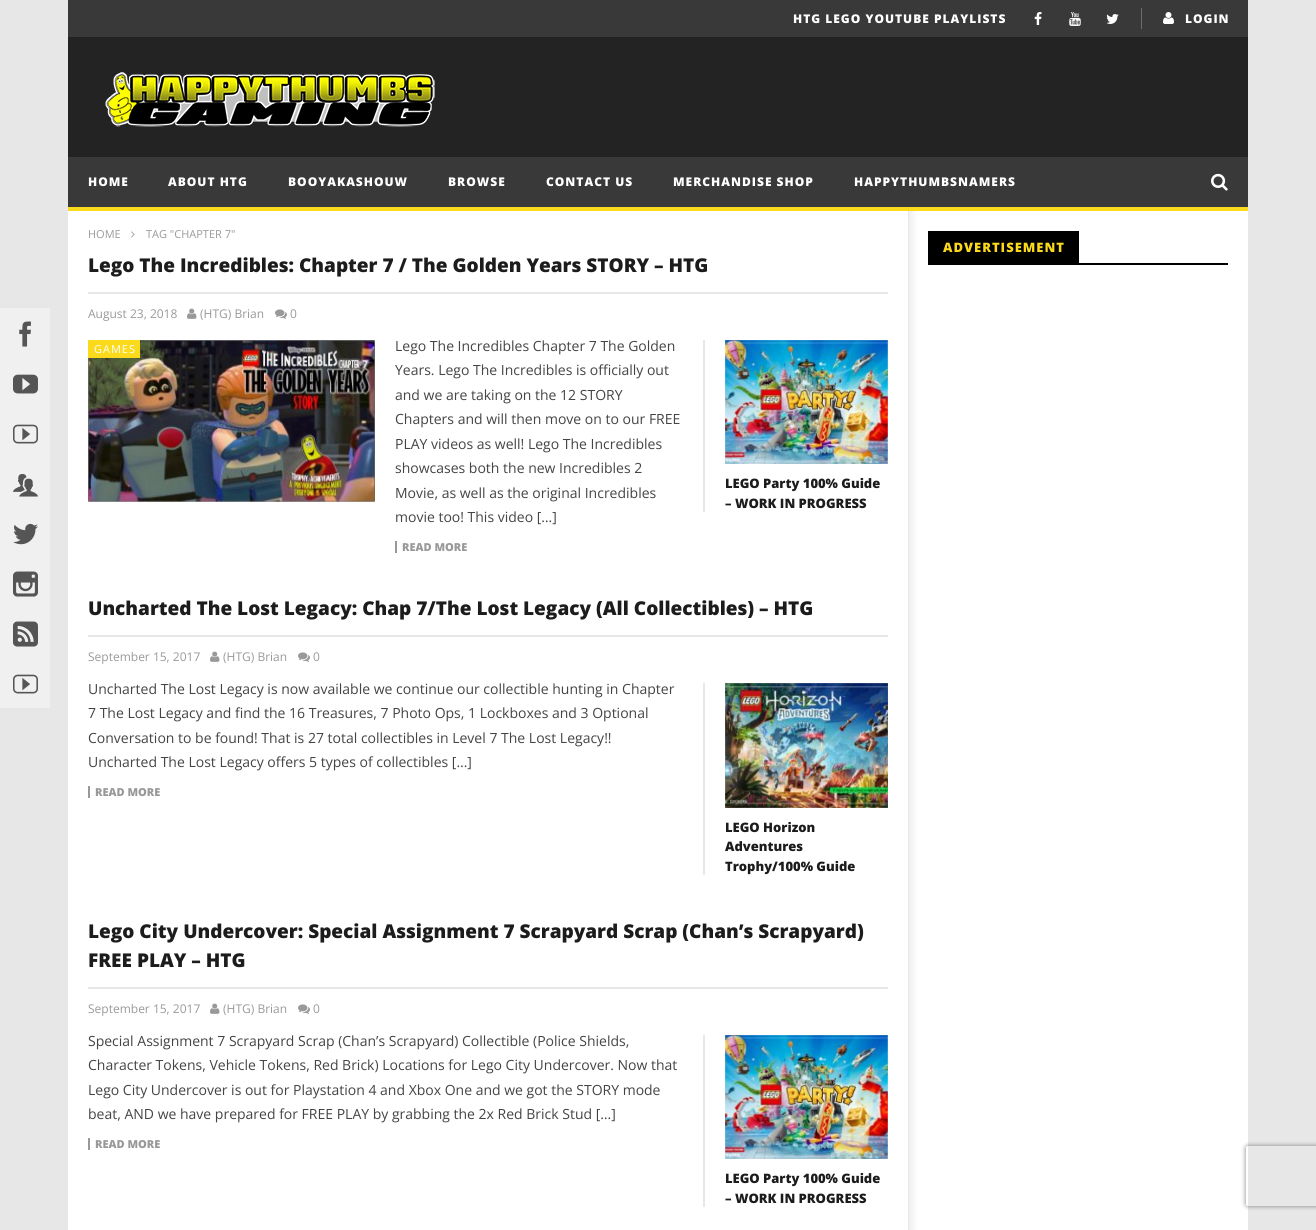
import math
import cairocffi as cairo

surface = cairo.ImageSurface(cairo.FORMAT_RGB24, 1316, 1230)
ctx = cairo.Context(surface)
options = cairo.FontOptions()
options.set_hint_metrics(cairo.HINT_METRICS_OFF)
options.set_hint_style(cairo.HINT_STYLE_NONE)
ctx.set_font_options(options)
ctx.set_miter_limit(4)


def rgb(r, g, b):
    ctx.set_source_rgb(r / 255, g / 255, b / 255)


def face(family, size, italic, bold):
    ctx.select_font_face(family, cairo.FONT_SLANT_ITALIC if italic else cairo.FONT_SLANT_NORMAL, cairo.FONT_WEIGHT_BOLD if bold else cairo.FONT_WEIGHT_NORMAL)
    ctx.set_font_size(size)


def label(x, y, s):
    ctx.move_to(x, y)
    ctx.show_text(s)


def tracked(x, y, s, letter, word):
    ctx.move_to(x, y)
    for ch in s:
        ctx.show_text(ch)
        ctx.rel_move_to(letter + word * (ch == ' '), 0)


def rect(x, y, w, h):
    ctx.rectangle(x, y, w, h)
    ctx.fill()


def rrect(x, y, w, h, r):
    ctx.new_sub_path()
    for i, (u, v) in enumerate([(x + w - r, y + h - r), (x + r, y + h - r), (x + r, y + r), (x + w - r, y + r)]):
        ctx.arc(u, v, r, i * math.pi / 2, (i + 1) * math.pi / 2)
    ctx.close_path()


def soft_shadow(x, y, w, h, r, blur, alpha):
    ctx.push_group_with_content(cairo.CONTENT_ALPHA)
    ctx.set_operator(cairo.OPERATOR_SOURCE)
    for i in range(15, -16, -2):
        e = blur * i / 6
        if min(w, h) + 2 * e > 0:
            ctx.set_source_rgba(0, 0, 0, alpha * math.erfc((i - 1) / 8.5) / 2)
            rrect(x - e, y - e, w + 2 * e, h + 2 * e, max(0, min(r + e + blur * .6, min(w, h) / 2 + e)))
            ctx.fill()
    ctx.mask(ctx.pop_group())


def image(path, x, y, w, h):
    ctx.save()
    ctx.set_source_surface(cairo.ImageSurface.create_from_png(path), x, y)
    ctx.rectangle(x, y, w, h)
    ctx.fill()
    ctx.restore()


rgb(231, 231, 231)
ctx.paint()
rgb(240, 240, 240)
rect(0, 308, 50, 400)
image('image0.png', 19, 321, 12, 26)
image('image1.png', 13, 374, 25, 20)
image('image2.png', 13, 424, 25, 20)
image('image3.png', 13, 474, 25, 23)
image('image4.png', 13, 523, 25, 22)
image('image5.png', 13, 571, 25, 26)
image('image6.png', 13, 621, 25, 26)
image('image2.png', 13, 674, 25, 20)
rgb(255, 255, 255)
rect(68, 211, 1180, 1019)
rgb(35, 35, 35)
rect(68, 37, 1180, 120)
rgb(57, 57, 57)
rect(68, 0, 1180, 37)
face('Open Sans ExtraBold', 12, 0, 0)
rgb(255, 255, 255)
tracked(793, 23, 'HTG LEGO YOUTUBE PLAYLISTS', 1, 0)
image('image7.png', 1034, 12, 8, 13)
image('image8.png', 1069, 12, 12, 14)
image('image9.png', 1106, 14, 13, 10)
rgb(109, 109, 109)
rect(1141, 8, 1, 21)
image('image10.png', 1163, 12, 11, 12)
rgb(255, 255, 255)
tracked(1185, 23, 'LOGIN', 1, 0)
image('image11.png', 105, 72, 330, 55)
rgb(57, 57, 57)
rect(68, 157, 1180, 50)
rgb(250, 218, 26)
rect(68, 207, 1180, 4)
rgb(255, 255, 255)
tracked(88, 186, 'HOME', 1, 0)
tracked(168, 186, 'ABOUT HTG', 1, 0)
tracked(288, 186, 'BOOYAKASHOUW', 1, 0)
tracked(448, 186, 'BROWSE', 1, 0)
tracked(546, 186, 'CONTACT US', 1, 0)
tracked(673, 186, 'MERCHANDISE SHOP', 1, 0)
tracked(854, 186, 'HAPPYTHUMBSNAMERS', 1, 0)
image('image12.png', 1211, 173, 17, 18)
face('Open Sans', 11, 0, 0)
rgb(153, 153, 153)
label(88, 238, 'HOME')
image('image13.png', 131, 231, 4, 7)
label(146, 238, 'TAG "CHAPTER 7"')
gradient = cairo.LinearGradient(909, 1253, 918, 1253)
gradient.add_color_stop_rgba(0, 0.941, 0.941, 0.941, 1)
gradient.add_color_stop_rgba(1, 1, 1, 1, 1)
ctx.set_source(gradient)
rect(909, 211, 8, 1019)
rgb(231, 231, 231)
rect(88, 292, 800, 2)
face('Open Sans ExtraBold', 19, 0, 0)
rgb(28, 28, 28)
label(88, 272, 'Lego The Incredibles: Chapter 7 / The Golden Years STORY – HTG')
face('Open Sans', 12, 0, 0)
rgb(153, 153, 153)
label(88, 318, 'August 23, 2018')
image('image14.png', 187, 308, 10, 11)
label(200, 318, '(HTG) Brian')
image('image15.png', 275, 309, 12, 10)
label(290, 318, '0')
image('image16.png', 88, 340, 287, 162)
rgb(250, 218, 26)
rect(88, 340, 52, 18)
face('Open Sans', 11, 0, 0)
rgb(255, 255, 255)
tracked(94, 353, 'GAMES', 1, 0)
face('Open Sans', 14, 0, 0)
rgb(68, 68, 68)
label(395, 351, 'Lego The Incredibles Chapter 7 The Golden')
label(395, 375, 'Years. Lego The Incredibles is officially out')
label(395, 400, 'and we are taking on the 12 STORY')
label(395, 424, 'Chapters and will then move on to our FREE')
label(395, 449, 'PLAY videos as well! Lego The Incredibles')
label(395, 473, 'showcases both the new Incredibles 2')
label(395, 498, 'Movie, as well as the original Incredibles')
label(395, 522, 'movie too! This video […]')
rgb(153, 153, 153)
rect(395, 541, 2, 12)
face('Open Sans ExtraBold', 11, 0, 0)
label(402, 551, 'READ MORE')
rgb(231, 231, 231)
rect(703, 340, 2, 172)
image('image17.png', 725, 340, 163, 124)
face('Open Sans ExtraBold', 13, 0, 0)
rgb(28, 28, 28)
label(725, 488, 'LEGO Party 100% Guide')
label(725, 508, '– WORK IN PROGRESS')
rgb(231, 231, 231)
rect(88, 635, 800, 2)
face('Open Sans ExtraBold', 19, 0, 0)
rgb(28, 28, 28)
label(88, 615, 'Uncharted The Lost Legacy: Chap 7/The Lost Legacy (All Collectibles) – HTG')
face('Open Sans', 12, 0, 0)
rgb(153, 153, 153)
label(88, 661, 'September 15, 2017')
image('image14.png', 210, 651, 10, 11)
label(223, 661, '(HTG) Brian')
image('image15.png', 298, 652, 12, 10)
label(313, 661, '0')
face('Open Sans', 14, 0, 0)
rgb(68, 68, 68)
label(88, 694, 'Uncharted The Lost Legacy is now available we continue our collectible hunting in Chapter')
label(88, 718, '7 The Lost Legacy and find the 16 Treasures, 7 Photo Ops, 1 Lockboxes and 3 Optional')
label(88, 743, 'Conversation to be found! That is 27 total collectibles in Level 7 The Lost Legacy!!')
label(88, 767, 'Uncharted The Lost Legacy offers 5 types of collectibles […]')
rgb(153, 153, 153)
rect(88, 786, 2, 12)
face('Open Sans ExtraBold', 11, 0, 0)
label(95, 796, 'READ MORE')
rgb(231, 231, 231)
rect(703, 683, 2, 192)
image('image18.png', 725, 683, 163, 125)
face('Open Sans ExtraBold', 13, 0, 0)
rgb(28, 28, 28)
label(725, 832, 'LEGO Horizon')
label(725, 851, 'Adventures')
label(725, 871, 'Trophy/100% Guide')
rgb(231, 231, 231)
rect(88, 987, 800, 2)
face('Open Sans ExtraBold', 19, 0, 0)
rgb(28, 28, 28)
label(88, 938, 'Lego City Undercover: Special Assignment 7 Scrapyard Scrap (Chan’s Scrapyard)')
label(88, 967, 'FREE PLAY – HTG')
face('Open Sans', 12, 0, 0)
rgb(153, 153, 153)
label(88, 1013, 'September 15, 2017')
image('image14.png', 210, 1003, 10, 11)
label(223, 1013, '(HTG) Brian')
image('image15.png', 298, 1004, 12, 10)
label(313, 1013, '0')
face('Open Sans', 14, 0, 0)
rgb(68, 68, 68)
label(88, 1046, 'Special Assignment 7 Scrapyard Scrap (Chan’s Scrapyard) Collectible (Police Shields,')
label(88, 1070, 'Character Tokens, Vehicle Tokens, Red Brick) Locations for Lego City Undercover. Now that')
label(88, 1095, 'Lego City Undercover is out for Playstation 4 and Xbox One and we got the STORY mode')
label(88, 1119, 'beat, AND we have prepared for FREE PLAY by grabbing the 2x Red Brick Stud […]')
rgb(153, 153, 153)
rect(88, 1138, 2, 12)
face('Open Sans ExtraBold', 11, 0, 0)
label(95, 1148, 'READ MORE')
rgb(231, 231, 231)
rect(703, 1035, 2, 172)
image('image17.png', 725, 1035, 163, 124)
face('Open Sans ExtraBold', 13, 0, 0)
rgb(28, 28, 28)
label(725, 1183, 'LEGO Party 100% Guide')
label(725, 1203, '– WORK IN PROGRESS')
rgb(231, 231, 231)
rect(908, 211, 1, 1019)
rgb(0, 0, 0)
rect(928, 231, 151, 32)
rgb(250, 218, 26)
tracked(943, 252, 'ADVERTISEMENT', 1, 0)
rgb(0, 0, 0)
rect(928, 263, 300, 2)
ctx.save()
ctx.set_fill_rule(cairo.FILL_RULE_EVEN_ODD)
ctx.new_path()
ctx.move_to(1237, 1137)
ctx.line_to(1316, 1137)
ctx.line_to(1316, 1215)
ctx.line_to(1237, 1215)
ctx.close_path()
ctx.move_to(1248, 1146)
ctx.line_to(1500, 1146)
ctx.curve_to(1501, 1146, 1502, 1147, 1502, 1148)
ctx.line_to(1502, 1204)
ctx.curve_to(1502, 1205, 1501, 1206, 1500, 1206)
ctx.line_to(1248, 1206)
ctx.curve_to(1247, 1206, 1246, 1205, 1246, 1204)
ctx.line_to(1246, 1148)
ctx.curve_to(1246, 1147, 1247, 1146, 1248, 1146)
ctx.close_path()
ctx.clip()
rgb(128, 128, 128)
soft_shadow(1246, 1146, 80, 60, 2, 2.5, 1)
ctx.restore()
surface.write_to_png('render.png')
